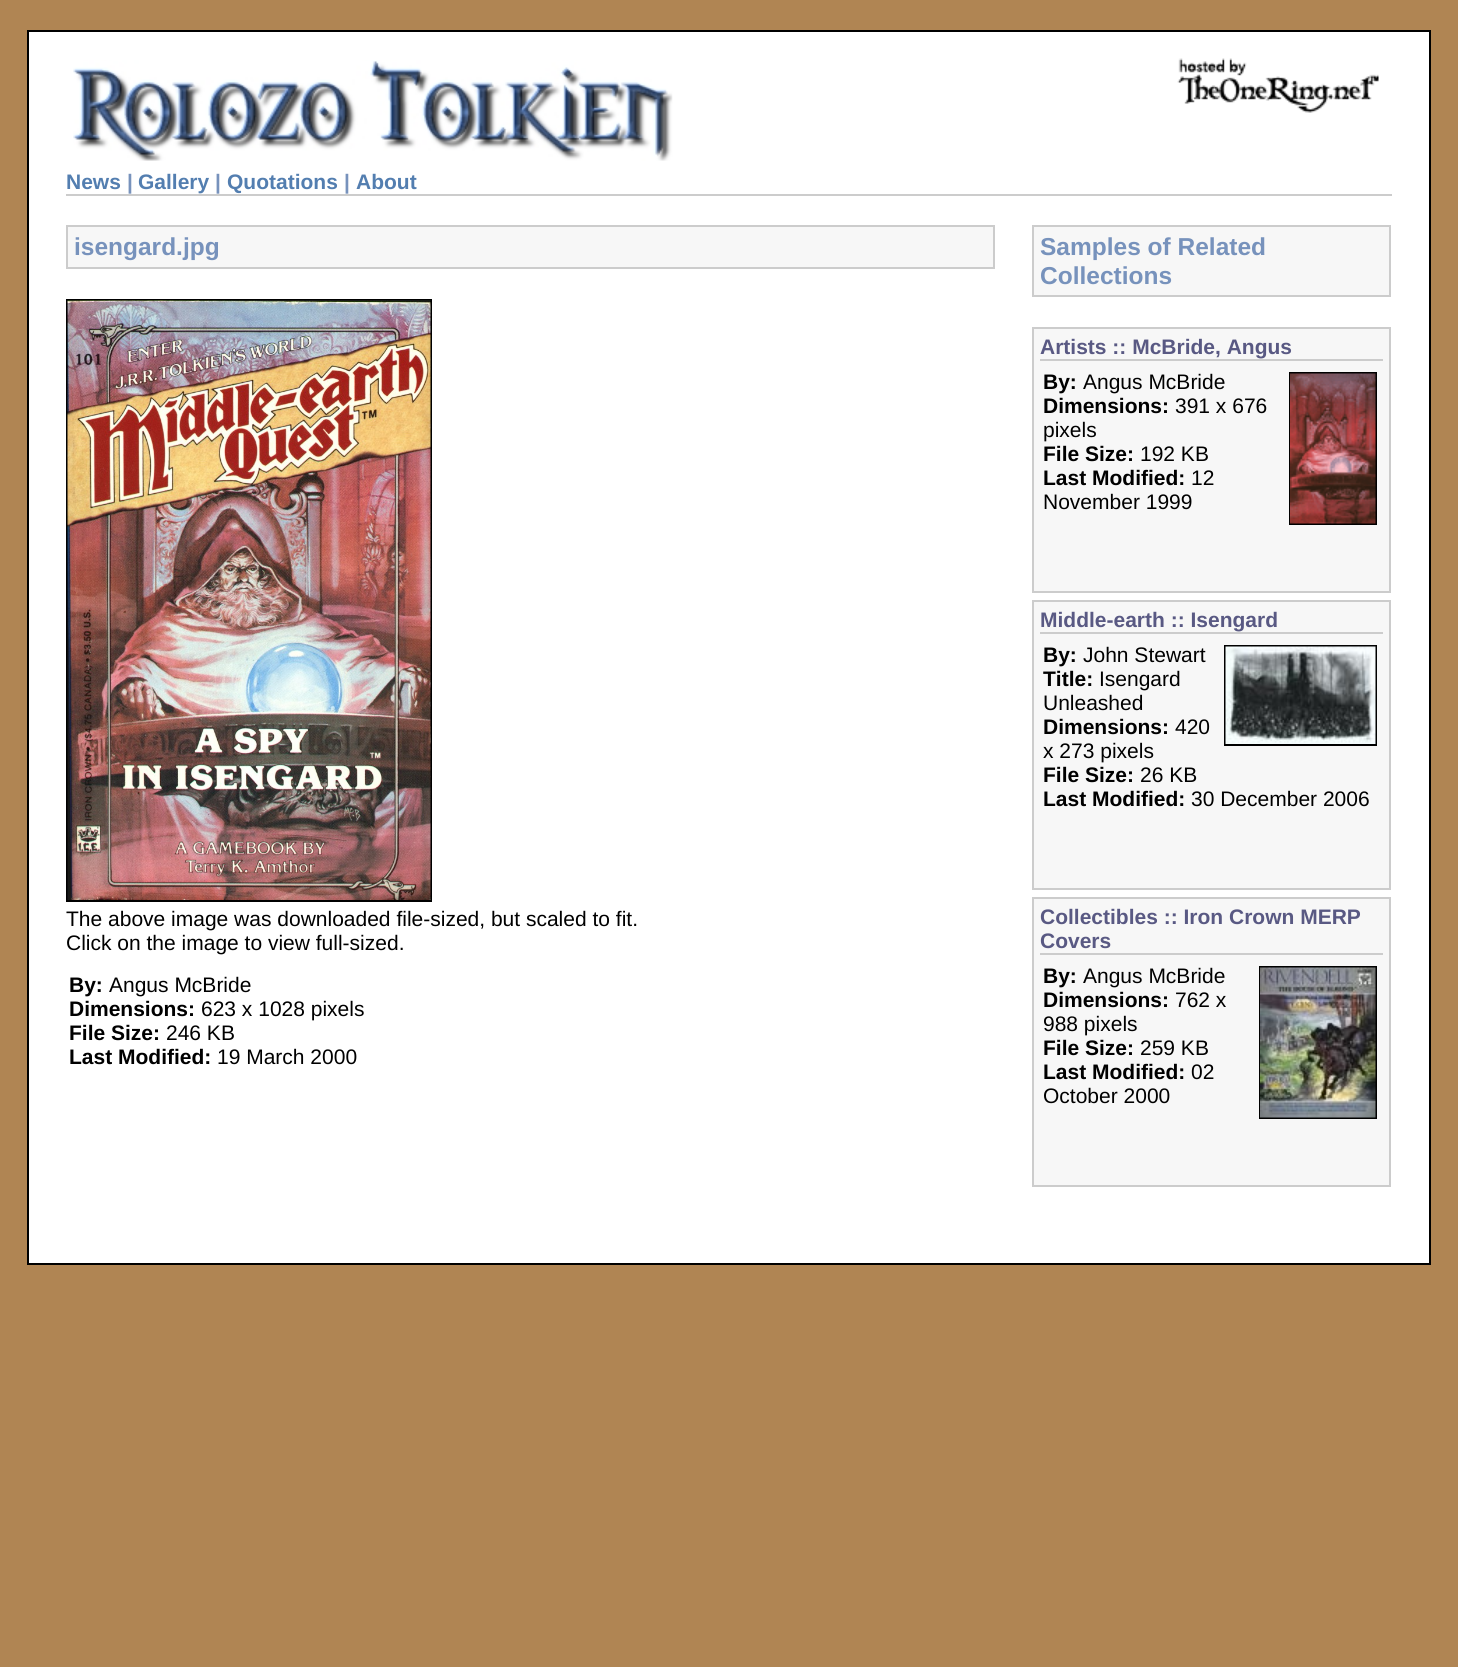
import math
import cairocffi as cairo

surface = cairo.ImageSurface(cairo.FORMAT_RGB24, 1458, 1667)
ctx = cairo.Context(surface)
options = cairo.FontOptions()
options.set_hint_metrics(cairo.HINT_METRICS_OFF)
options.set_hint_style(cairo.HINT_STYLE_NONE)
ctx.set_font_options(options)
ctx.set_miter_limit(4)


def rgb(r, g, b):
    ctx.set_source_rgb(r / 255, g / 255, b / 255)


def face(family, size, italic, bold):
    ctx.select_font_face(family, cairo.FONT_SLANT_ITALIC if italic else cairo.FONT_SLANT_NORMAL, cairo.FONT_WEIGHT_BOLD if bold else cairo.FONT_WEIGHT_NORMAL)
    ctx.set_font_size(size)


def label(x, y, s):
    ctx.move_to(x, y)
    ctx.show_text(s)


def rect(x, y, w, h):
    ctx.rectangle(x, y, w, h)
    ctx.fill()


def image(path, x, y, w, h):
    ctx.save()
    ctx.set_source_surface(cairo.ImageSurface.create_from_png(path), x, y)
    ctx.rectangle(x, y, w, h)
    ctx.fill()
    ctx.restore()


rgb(176, 133, 83)
ctx.paint()
rgb(255, 255, 255)
ctx.rectangle(28, 31, 1402, 1233)
ctx.fill_preserve()
rgb(0, 0, 0)
ctx.stroke()
image('image0.png', 73, 60, 600, 101)
image('image1.png', 1177, 58, 202, 55)
rgb(204, 204, 204)
rect(66, 194, 1326, 2)
face('Liberation Sans', 21, 0, 1)
rgb(83, 126, 176)
label(66, 189, 'News')
rgb(119, 146, 188)
label(127, 189, '|')
rgb(83, 126, 176)
label(138, 189, 'Gallery')
rgb(119, 146, 188)
label(215, 189, '|')
rgb(83, 126, 176)
label(227, 189, 'Quotations')
rgb(119, 146, 188)
label(344, 189, '|')
rgb(83, 126, 176)
label(356, 189, 'About')
rgb(247, 247, 247)
ctx.rectangle(67, 226, 927, 42)
ctx.fill_preserve()
rgb(204, 204, 204)
ctx.stroke()
face('Liberation Sans', 24.5, 0, 1)
rgb(119, 146, 188)
label(74, 255, 'isengard.jpg')
ctx.rectangle(67, 300, 364, 601)
rgb(0, 0, 0)
ctx.stroke()
image('image2.png', 67, 300, 364, 600)
face('Liberation Sans', 21, 0, 0)
label(66, 926, 'The above image was downloaded file-sized, but scaled to fit.')
label(66, 950, 'Click on the image to view full-sized.')
face('Liberation Sans', 21, 0, 1)
label(69, 992, 'By:')
face('Liberation Sans', 21, 0, 0)
label(109, 992, 'Angus McBride')
face('Liberation Sans', 21, 0, 1)
label(69, 1016, 'Dimensions:')
face('Liberation Sans', 21, 0, 0)
label(201, 1016, '623 x 1028 pixels')
face('Liberation Sans', 21, 0, 1)
label(69, 1040, 'File Size:')
face('Liberation Sans', 21, 0, 0)
label(166, 1040, '246 KB')
face('Liberation Sans', 21, 0, 1)
label(69, 1064, 'Last Modified:')
face('Liberation Sans', 21, 0, 0)
label(217, 1064, '19 March 2000')
rgb(247, 247, 247)
ctx.rectangle(1033, 226, 357, 70)
ctx.fill_preserve()
rgb(204, 204, 204)
ctx.stroke()
face('Liberation Sans', 24.5, 0, 1)
rgb(119, 146, 188)
label(1040, 255, 'Samples of Related')
label(1040, 284, 'Collections')
rgb(247, 247, 247)
ctx.rectangle(1033, 328, 357, 264)
ctx.fill_preserve()
rgb(204, 204, 204)
ctx.stroke()
rect(1040, 359, 343, 2)
face('Liberation Sans', 21, 0, 1)
rgb(89, 89, 131)
label(1040, 354, 'Artists :: McBride, Angus')
rgb(0, 0, 0)
label(1043, 389, 'By:')
face('Liberation Sans', 21, 0, 0)
label(1083, 389, 'Angus McBride')
face('Liberation Sans', 21, 0, 1)
label(1043, 413, 'Dimensions:')
face('Liberation Sans', 21, 0, 0)
label(1175, 413, '391 x 676')
label(1043, 437, 'pixels')
face('Liberation Sans', 21, 0, 1)
label(1043, 461, 'File Size:')
face('Liberation Sans', 21, 0, 0)
label(1140, 461, '192 KB')
face('Liberation Sans', 21, 0, 1)
label(1043, 485, 'Last Modified:')
face('Liberation Sans', 21, 0, 0)
label(1191, 485, '12')
label(1043, 509, 'November 1999')
ctx.rectangle(1290, 373, 86, 151)
ctx.stroke()
image('image3.png', 1290, 373, 86, 151)
rgb(247, 247, 247)
ctx.rectangle(1033, 601, 357, 288)
ctx.fill_preserve()
rgb(204, 204, 204)
ctx.stroke()
rect(1040, 632, 343, 2)
face('Liberation Sans', 21, 0, 1)
rgb(89, 89, 131)
label(1040, 627, 'Middle-earth :: Isengard')
ctx.rectangle(1225, 646, 151, 99)
rgb(0, 0, 0)
ctx.stroke()
image('image4.png', 1225, 646, 151, 98)
label(1043, 662, 'By:')
face('Liberation Sans', 21, 0, 0)
label(1083, 662, 'John Stewart')
face('Liberation Sans', 21, 0, 1)
label(1043, 686, 'Title:')
face('Liberation Sans', 21, 0, 0)
label(1099, 686, 'Isengard')
label(1043, 710, 'Unleashed')
face('Liberation Sans', 21, 0, 1)
label(1043, 734, 'Dimensions:')
face('Liberation Sans', 21, 0, 0)
label(1175, 734, '420')
label(1043, 758, 'x 273 pixels')
face('Liberation Sans', 21, 0, 1)
label(1043, 782, 'File Size:')
face('Liberation Sans', 21, 0, 0)
label(1140, 782, '26 KB')
face('Liberation Sans', 21, 0, 1)
label(1043, 806, 'Last Modified:')
face('Liberation Sans', 21, 0, 0)
label(1191, 806, '30 December 2006')
rgb(247, 247, 247)
ctx.rectangle(1033, 898, 357, 288)
ctx.fill_preserve()
rgb(204, 204, 204)
ctx.stroke()
rect(1040, 953, 343, 2)
face('Liberation Sans', 21, 0, 1)
rgb(89, 89, 131)
label(1040, 924, 'Collectibles :: Iron Crown MERP')
label(1040, 948, 'Covers')
rgb(0, 0, 0)
label(1043, 983, 'By:')
face('Liberation Sans', 21, 0, 0)
label(1083, 983, 'Angus McBride')
face('Liberation Sans', 21, 0, 1)
label(1043, 1007, 'Dimensions:')
face('Liberation Sans', 21, 0, 0)
label(1175, 1007, '762 x')
label(1043, 1031, '988 pixels')
face('Liberation Sans', 21, 0, 1)
label(1043, 1055, 'File Size:')
face('Liberation Sans', 21, 0, 0)
label(1140, 1055, '259 KB')
face('Liberation Sans', 21, 0, 1)
label(1043, 1079, 'Last Modified:')
face('Liberation Sans', 21, 0, 0)
label(1191, 1079, '02')
label(1043, 1103, 'October 2000')
ctx.rectangle(1260, 967, 116, 151)
ctx.stroke()
image('image5.png', 1260, 967, 116, 151)
surface.write_to_png('render.png')
